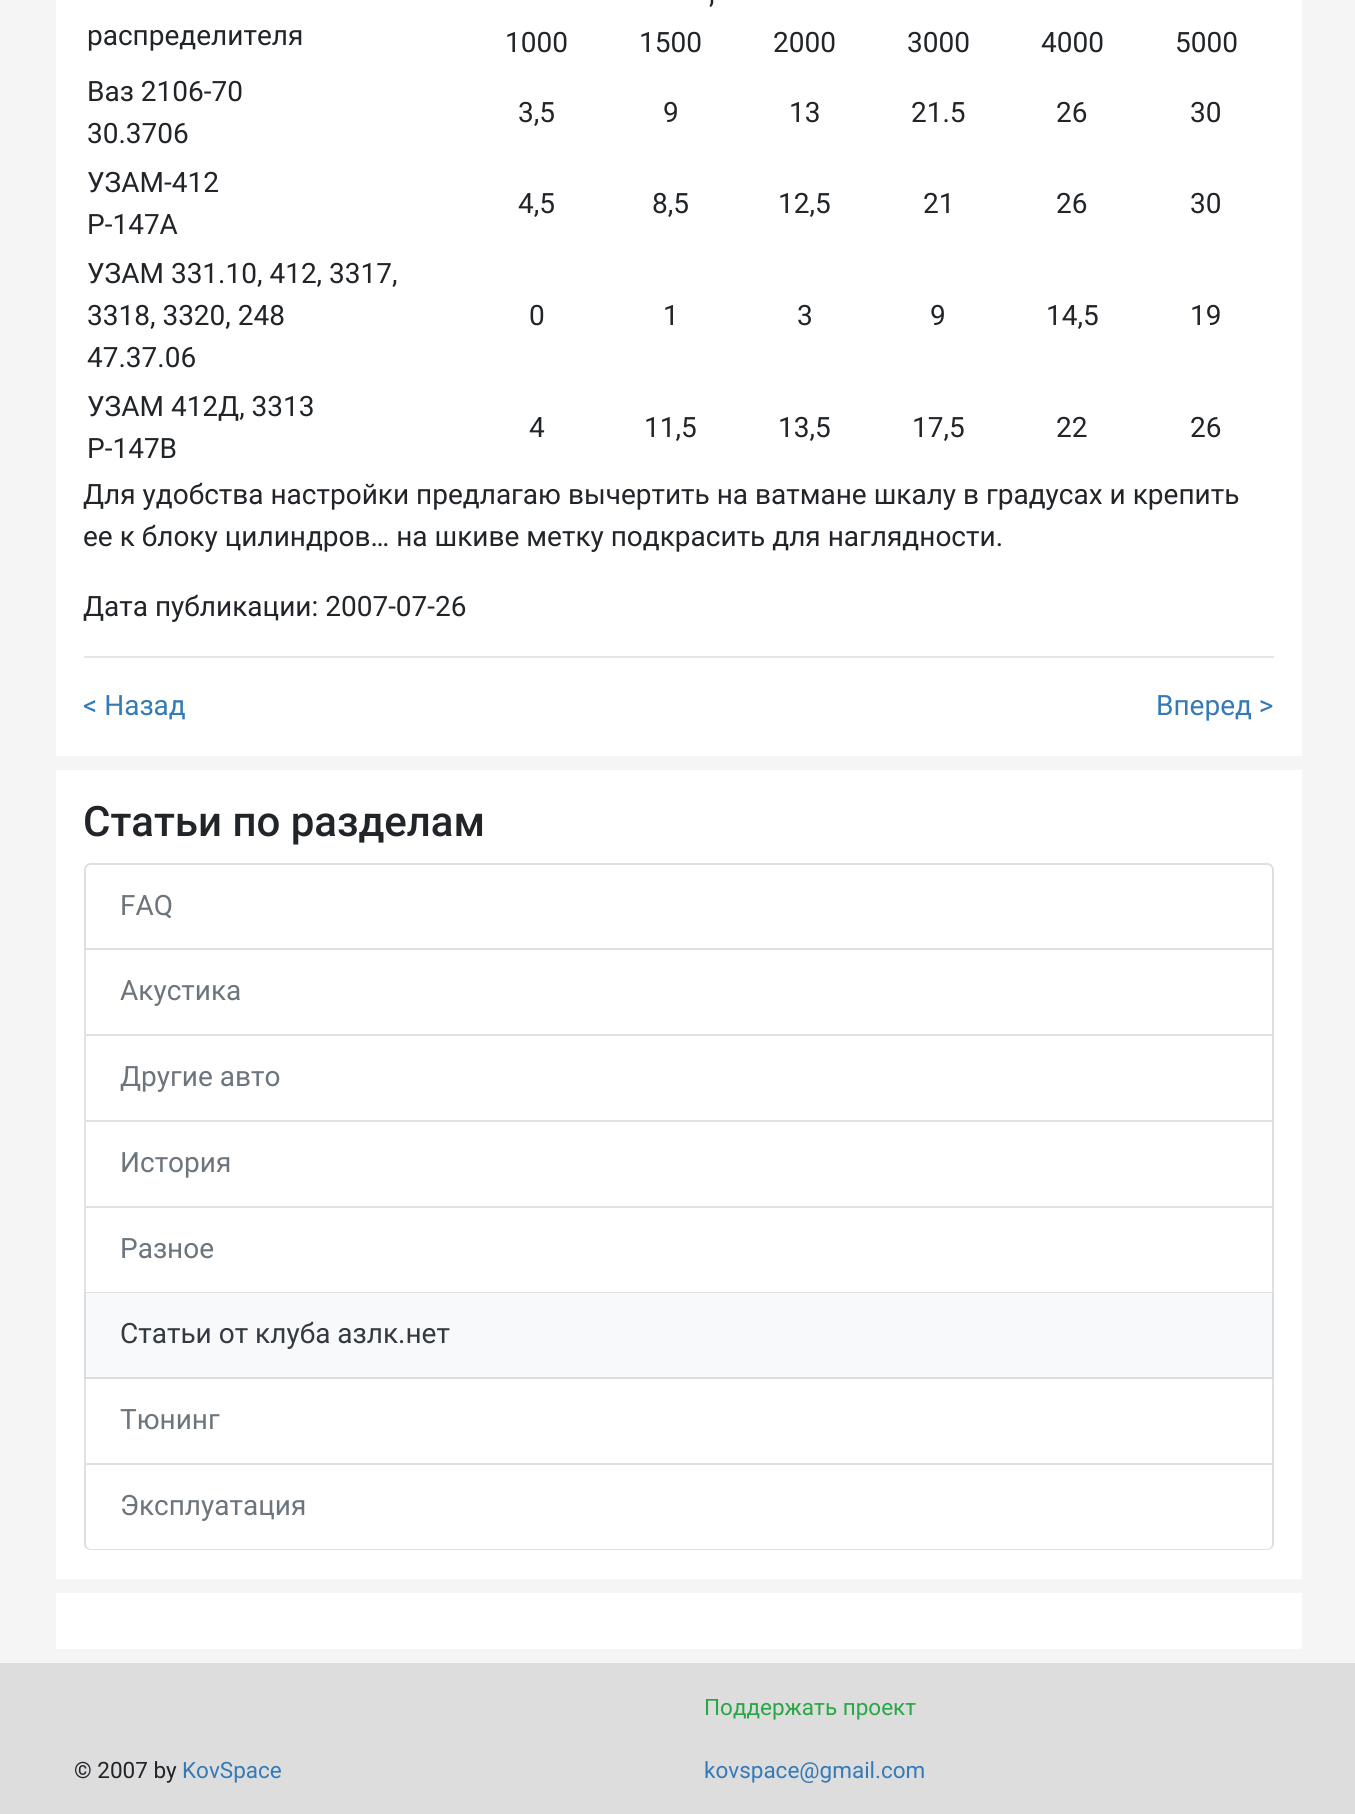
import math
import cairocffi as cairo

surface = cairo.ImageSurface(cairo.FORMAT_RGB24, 1355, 1814)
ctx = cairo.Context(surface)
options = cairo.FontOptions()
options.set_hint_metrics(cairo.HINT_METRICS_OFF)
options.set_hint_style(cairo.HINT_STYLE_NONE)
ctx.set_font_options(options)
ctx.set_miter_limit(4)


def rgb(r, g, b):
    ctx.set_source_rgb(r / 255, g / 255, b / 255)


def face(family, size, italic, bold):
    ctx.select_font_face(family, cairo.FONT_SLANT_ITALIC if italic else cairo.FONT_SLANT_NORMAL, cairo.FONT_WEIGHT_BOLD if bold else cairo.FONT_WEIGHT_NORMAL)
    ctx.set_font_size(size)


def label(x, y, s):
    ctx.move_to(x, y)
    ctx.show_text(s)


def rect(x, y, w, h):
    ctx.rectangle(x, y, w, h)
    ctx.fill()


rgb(221, 221, 221)
ctx.paint()
rgb(245, 245, 245)
rect(0, 0, 1355, 1663)
rgb(255, 255, 255)
rect(56, 0, 1246, 756)
face('Roboto', 28, 0, 0)
rgb(33, 37, 41)
label(709, 3, ',')
label(87, 45, 'распределителя')
label(505, 52, '1000')
label(639, 52, '1500')
label(773, 52, '2000')
label(907, 52, '3000')
label(1041, 52, '4000')
label(1175, 52, '5000')
label(87, 101, 'Ваз 2106-70')
label(87, 143, '30.3706')
label(518, 122, '3,5')
label(663, 122, '9')
label(789, 122, '13')
label(911, 122, '21.5')
label(1056, 122, '26')
label(1190, 122, '30')
label(87, 192, 'УЗАМ-412')
label(87, 234, 'Р-147А')
label(518, 213, '4,5')
label(652, 213, '8,5')
label(778, 213, '12,5')
label(923, 213, '21')
label(1056, 213, '26')
label(1190, 213, '30')
label(87, 283, 'УЗАМ 331.10, 412, 3317,')
label(87, 325, '3318, 3320, 248')
label(87, 367, '47.37.06')
label(529, 325, '0')
label(663, 325, '1')
label(797, 325, '3')
label(930, 325, '9')
label(1046, 325, '14,5')
label(1190, 325, '19')
label(87, 416, 'УЗАМ 412Д, 3313')
label(87, 458, 'Р-147В')
label(529, 437, '4')
label(644, 437, '11,5')
label(778, 437, '13,5')
label(912, 437, '17,5')
label(1056, 437, '22')
label(1190, 437, '26')
label(83, 504, 'Для удобства настройки предлагаю вычертить на ватмане шкалу в градусах и крепить')
label(83, 546, 'ее к блоку цилиндров… на шкиве метку подкрасить для наглядности.')
label(83, 616, 'Дата публикации: 2007-07-26')
rgb(230, 230, 230)
rect(84, 656, 1190, 2)
rgb(51, 122, 183)
label(83, 715, '< Назад')
label(1156, 715, 'Вперед >')
rgb(255, 255, 255)
rect(56, 770, 1246, 809)
face('Roboto Medium', 42, 0, 0)
rgb(33, 37, 41)
label(83, 836, 'Статьи по разделам')
ctx.new_path()
ctx.move_to(91, 864)
ctx.line_to(1267, 864)
ctx.curve_to(1270.5, 864, 1273, 866.5, 1273, 870)
ctx.line_to(1273, 949)
ctx.line_to(85, 949)
ctx.line_to(85, 870)
ctx.curve_to(85, 866.5, 87.5, 864, 91, 864)
ctx.close_path()
rgb(223, 223, 223)
ctx.stroke()
face('Roboto', 28, 0, 0)
rgb(108, 117, 125)
label(120, 915, 'FAQ')
rgb(223, 223, 223)
ctx.new_path()
ctx.move_to(1274, 950)
ctx.line_to(1274, 1036)
ctx.line_to(1272, 1034)
ctx.line_to(1272, 950)
ctx.close_path()
ctx.fill()
ctx.set_source_rgba(0, 0, 0, 0.12)
ctx.new_path()
ctx.move_to(1274, 1036)
ctx.line_to(84, 1036)
ctx.line_to(86, 1034)
ctx.line_to(1272, 1034)
ctx.close_path()
ctx.fill()
ctx.new_path()
ctx.move_to(84, 1036)
ctx.line_to(84, 950)
ctx.line_to(86, 950)
ctx.line_to(86, 1034)
ctx.close_path()
ctx.fill()
rgb(108, 117, 125)
label(120, 1000, 'Акустика')
rgb(223, 223, 223)
ctx.new_path()
ctx.move_to(1274, 1036)
ctx.line_to(1274, 1122)
ctx.line_to(1272, 1120)
ctx.line_to(1272, 1036)
ctx.close_path()
ctx.fill()
ctx.set_source_rgba(0, 0, 0, 0.12)
ctx.new_path()
ctx.move_to(1274, 1122)
ctx.line_to(84, 1122)
ctx.line_to(86, 1120)
ctx.line_to(1272, 1120)
ctx.close_path()
ctx.fill()
ctx.new_path()
ctx.move_to(84, 1122)
ctx.line_to(84, 1036)
ctx.line_to(86, 1036)
ctx.line_to(86, 1120)
ctx.close_path()
ctx.fill()
rgb(108, 117, 125)
label(120, 1086, 'Другие авто')
rgb(223, 223, 223)
ctx.new_path()
ctx.move_to(1274, 1122)
ctx.line_to(1274, 1208)
ctx.line_to(1272, 1206)
ctx.line_to(1272, 1122)
ctx.close_path()
ctx.fill()
ctx.set_source_rgba(0, 0, 0, 0.12)
ctx.new_path()
ctx.move_to(1274, 1208)
ctx.line_to(84, 1208)
ctx.line_to(86, 1206)
ctx.line_to(1272, 1206)
ctx.close_path()
ctx.fill()
ctx.new_path()
ctx.move_to(84, 1208)
ctx.line_to(84, 1122)
ctx.line_to(86, 1122)
ctx.line_to(86, 1206)
ctx.close_path()
ctx.fill()
rgb(108, 117, 125)
label(120, 1172, 'История')
rgb(223, 223, 223)
ctx.new_path()
ctx.move_to(1274, 1208)
ctx.line_to(1274, 1293)
ctx.line_to(1272, 1292)
ctx.line_to(1272, 1208)
ctx.close_path()
ctx.fill()
ctx.set_source_rgba(0, 0, 0, 0.12)
ctx.new_path()
ctx.move_to(1274, 1293)
ctx.line_to(84, 1293)
ctx.line_to(86, 1292)
ctx.line_to(1272, 1292)
ctx.close_path()
ctx.fill()
ctx.new_path()
ctx.move_to(84, 1293)
ctx.line_to(84, 1208)
ctx.line_to(86, 1208)
ctx.line_to(86, 1292)
ctx.close_path()
ctx.fill()
rgb(108, 117, 125)
label(120, 1258, 'Разное')
rgb(248, 249, 250)
rect(84, 1293, 1190, 86)
rgb(217, 218, 219)
ctx.new_path()
ctx.move_to(1274, 1293)
ctx.line_to(1274, 1379)
ctx.line_to(1272, 1377)
ctx.line_to(1272, 1293)
ctx.close_path()
ctx.fill()
ctx.set_source_rgba(0, 0, 0, 0.12)
ctx.new_path()
ctx.move_to(1274, 1379)
ctx.line_to(84, 1379)
ctx.line_to(86, 1377)
ctx.line_to(1272, 1377)
ctx.close_path()
ctx.fill()
ctx.new_path()
ctx.move_to(84, 1379)
ctx.line_to(84, 1293)
ctx.line_to(86, 1293)
ctx.line_to(86, 1377)
ctx.close_path()
ctx.fill()
rgb(52, 58, 64)
label(120, 1343, 'Статьи от клуба азлк.нет')
rgb(223, 223, 223)
ctx.new_path()
ctx.move_to(1274, 1379)
ctx.line_to(1274, 1465)
ctx.line_to(1272, 1463)
ctx.line_to(1272, 1379)
ctx.close_path()
ctx.fill()
ctx.set_source_rgba(0, 0, 0, 0.12)
ctx.new_path()
ctx.move_to(1274, 1465)
ctx.line_to(84, 1465)
ctx.line_to(86, 1463)
ctx.line_to(1272, 1463)
ctx.close_path()
ctx.fill()
ctx.new_path()
ctx.move_to(84, 1465)
ctx.line_to(84, 1379)
ctx.line_to(86, 1379)
ctx.line_to(86, 1463)
ctx.close_path()
ctx.fill()
rgb(108, 117, 125)
label(120, 1429, 'Тюнинг')
rgb(223, 223, 223)
ctx.set_fill_rule(cairo.FILL_RULE_EVEN_ODD)
ctx.new_path()
ctx.move_to(84, 1465)
ctx.line_to(1274, 1465)
ctx.line_to(1274, 1544)
ctx.curve_to(1274, 1547, 1271, 1550, 1267, 1550)
ctx.line_to(91, 1550)
ctx.curve_to(87, 1550, 84, 1547, 84, 1544)
ctx.close_path()
ctx.move_to(86, 1465)
ctx.line_to(1272, 1465)
ctx.line_to(1272, 1544)
ctx.curve_to(1272, 1546, 1270, 1549, 1267, 1549)
ctx.line_to(91, 1549)
ctx.curve_to(88, 1549, 86, 1546, 86, 1544)
ctx.close_path()
ctx.fill()
rgb(108, 117, 125)
label(120, 1515, 'Эксплуатация')
rgb(255, 255, 255)
rect(56, 1593, 1246, 56)
face('Roboto', 22.5, 0, 0)
rgb(40, 167, 69)
label(704, 1715, 'Поддержать проект')
rgb(33, 37, 41)
label(74, 1778, '© 2007 by')
rgb(51, 122, 183)
label(182, 1778, 'KovSpace')
label(704, 1778, 'kovspace@gmail.com')
surface.write_to_png('render.png')
